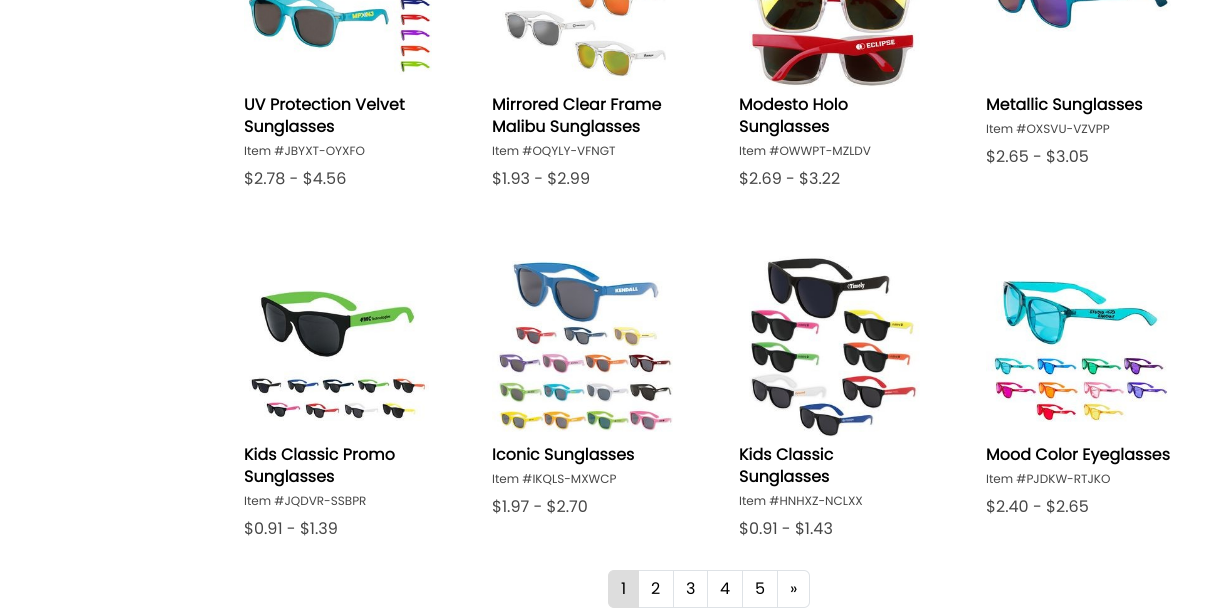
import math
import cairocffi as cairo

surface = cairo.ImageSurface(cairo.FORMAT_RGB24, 1216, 608)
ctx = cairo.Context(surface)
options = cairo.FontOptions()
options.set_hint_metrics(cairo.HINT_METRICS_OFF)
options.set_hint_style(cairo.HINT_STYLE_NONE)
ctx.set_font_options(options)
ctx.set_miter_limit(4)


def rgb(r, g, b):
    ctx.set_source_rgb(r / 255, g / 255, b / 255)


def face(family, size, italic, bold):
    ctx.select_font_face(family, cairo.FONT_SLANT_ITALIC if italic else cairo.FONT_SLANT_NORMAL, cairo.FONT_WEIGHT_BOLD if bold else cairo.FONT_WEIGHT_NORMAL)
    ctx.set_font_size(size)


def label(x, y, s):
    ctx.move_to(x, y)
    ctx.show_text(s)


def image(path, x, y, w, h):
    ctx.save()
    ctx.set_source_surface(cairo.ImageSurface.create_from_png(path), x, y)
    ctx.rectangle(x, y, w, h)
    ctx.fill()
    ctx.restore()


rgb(255, 255, 255)
ctx.paint()
image('image0.png', 244, 0, 188, 75)
face('Poppins', 16, 0, 1)
rgb(0, 0, 0)
label(244, 110, 'UV Protection Velvet')
label(244, 132, 'Sunglasses')
face('Poppins', 12, 0, 0)
rgb(70, 70, 70)
label(244, 155, 'Item #JBYXT-OYXFO')
face('Poppins', 16, 0, 0)
label(244, 184, '$2.78 - $4.56')
image('image1.png', 502, 0, 164, 81)
face('Poppins', 16, 0, 1)
rgb(0, 0, 0)
label(492, 110, 'Mirrored Clear Frame')
label(492, 132, 'Malibu Sunglasses')
face('Poppins', 12, 0, 0)
rgb(70, 70, 70)
label(492, 155, 'Item #OQYLY-VFNGT')
face('Poppins', 16, 0, 0)
label(492, 184, '$1.93 - $2.99')
image('image2.png', 749, 0, 171, 87)
face('Poppins', 16, 0, 1)
rgb(0, 0, 0)
label(739, 110, 'Modesto Holo')
label(739, 132, 'Sunglasses')
face('Poppins', 12, 0, 0)
rgb(70, 70, 70)
label(739, 155, 'Item #OWWPT-MZLDV')
face('Poppins', 16, 0, 0)
label(739, 184, '$2.69 - $3.22')
image('image3.png', 996, 0, 175, 32)
face('Poppins', 16, 0, 1)
rgb(0, 0, 0)
label(986, 110, 'Metallic Sunglasses')
face('Poppins', 12, 0, 0)
rgb(70, 70, 70)
label(986, 133, 'Item #OXSVU-VZVPP')
face('Poppins', 16, 0, 0)
label(986, 162, '$2.65 - $3.05')
image('image4.png', 249, 290, 180, 131)
face('Poppins', 16, 0, 1)
rgb(0, 0, 0)
label(244, 460, 'Kids Classic Promo')
label(244, 482, 'Sunglasses')
face('Poppins', 12, 0, 0)
rgb(70, 70, 70)
label(244, 505, 'Item #JQDVR-SSBPR')
face('Poppins', 16, 0, 0)
label(244, 534, '$0.91 - $1.39')
image('image5.png', 492, 261, 181, 171)
face('Poppins', 16, 0, 1)
rgb(0, 0, 0)
label(492, 460, 'Iconic Sunglasses')
face('Poppins', 12, 0, 0)
rgb(70, 70, 70)
label(492, 483, 'Item #IKQLS-MXWCP')
face('Poppins', 16, 0, 0)
label(492, 512, '$1.97 - $2.70')
image('image6.png', 749, 256, 171, 181)
face('Poppins', 16, 0, 1)
rgb(0, 0, 0)
label(739, 460, 'Kids Classic')
label(739, 482, 'Sunglasses')
face('Poppins', 12, 0, 0)
rgb(70, 70, 70)
label(739, 505, 'Item #HNHXZ-NCLXX')
face('Poppins', 16, 0, 0)
label(739, 534, '$0.91 - $1.43')
image('image7.png', 986, 280, 182, 142)
face('Poppins', 16, 0, 1)
rgb(0, 0, 0)
label(986, 460, 'Mood Color Eyeglasses')
face('Poppins', 12, 0, 0)
rgb(70, 70, 70)
label(986, 483, 'Item #PJDKW-RTJKO')
face('Poppins', 16, 0, 0)
label(986, 512, '$2.40 - $2.65')
ctx.rectangle(638.5, 570.5, 35, 37)
rgb(222, 226, 230)
ctx.set_line_width(1)
ctx.stroke()
rgb(221, 221, 221)
ctx.new_path()
ctx.move_to(614, 570.5)
ctx.line_to(638.5, 570.5)
ctx.line_to(638.5, 607.5)
ctx.line_to(614, 607.5)
ctx.curve_to(611, 607.5, 608.5, 605, 608.5, 602)
ctx.line_to(608.5, 576)
ctx.curve_to(608.5, 573, 611, 570.5, 614, 570.5)
ctx.close_path()
ctx.fill_preserve()
ctx.stroke()
rgb(0, 0, 0)
label(621, 594, '1')
label(651, 594, '2')
ctx.rectangle(673.5, 570.5, 34, 37)
rgb(222, 226, 230)
ctx.stroke()
rgb(0, 0, 0)
label(686, 594, '3')
ctx.rectangle(707.5, 570.5, 35, 37)
rgb(222, 226, 230)
ctx.stroke()
rgb(0, 0, 0)
label(720, 594, '4')
ctx.rectangle(742.5, 570.5, 35, 37)
rgb(222, 226, 230)
ctx.stroke()
rgb(0, 0, 0)
label(755, 594, '5')
rgb(255, 255, 255)
ctx.new_path()
ctx.move_to(777.5, 570.5)
ctx.line_to(804, 570.5)
ctx.curve_to(807, 570.5, 809.5, 573, 809.5, 576)
ctx.line_to(809.5, 602)
ctx.curve_to(809.5, 605, 807, 607.5, 804, 607.5)
ctx.line_to(777.5, 607.5)
ctx.close_path()
ctx.fill_preserve()
rgb(222, 226, 230)
ctx.stroke()
rgb(0, 0, 0)
label(790, 594, '»')
surface.write_to_png('render.png')
